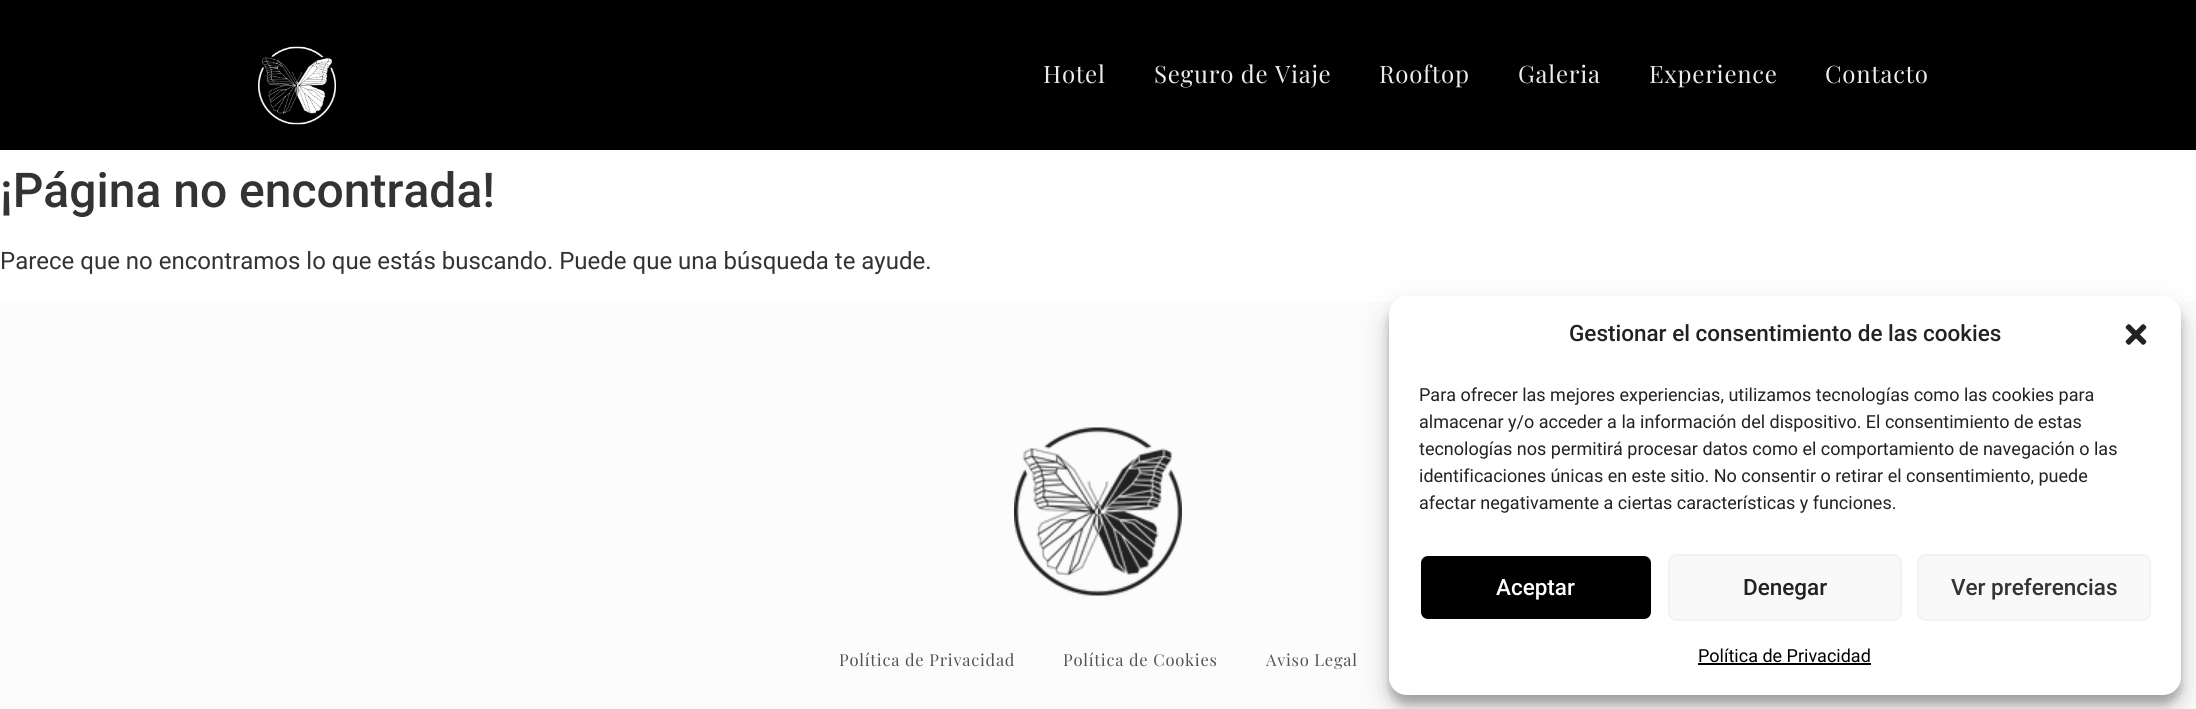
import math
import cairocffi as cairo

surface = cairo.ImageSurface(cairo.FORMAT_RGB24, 2196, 709)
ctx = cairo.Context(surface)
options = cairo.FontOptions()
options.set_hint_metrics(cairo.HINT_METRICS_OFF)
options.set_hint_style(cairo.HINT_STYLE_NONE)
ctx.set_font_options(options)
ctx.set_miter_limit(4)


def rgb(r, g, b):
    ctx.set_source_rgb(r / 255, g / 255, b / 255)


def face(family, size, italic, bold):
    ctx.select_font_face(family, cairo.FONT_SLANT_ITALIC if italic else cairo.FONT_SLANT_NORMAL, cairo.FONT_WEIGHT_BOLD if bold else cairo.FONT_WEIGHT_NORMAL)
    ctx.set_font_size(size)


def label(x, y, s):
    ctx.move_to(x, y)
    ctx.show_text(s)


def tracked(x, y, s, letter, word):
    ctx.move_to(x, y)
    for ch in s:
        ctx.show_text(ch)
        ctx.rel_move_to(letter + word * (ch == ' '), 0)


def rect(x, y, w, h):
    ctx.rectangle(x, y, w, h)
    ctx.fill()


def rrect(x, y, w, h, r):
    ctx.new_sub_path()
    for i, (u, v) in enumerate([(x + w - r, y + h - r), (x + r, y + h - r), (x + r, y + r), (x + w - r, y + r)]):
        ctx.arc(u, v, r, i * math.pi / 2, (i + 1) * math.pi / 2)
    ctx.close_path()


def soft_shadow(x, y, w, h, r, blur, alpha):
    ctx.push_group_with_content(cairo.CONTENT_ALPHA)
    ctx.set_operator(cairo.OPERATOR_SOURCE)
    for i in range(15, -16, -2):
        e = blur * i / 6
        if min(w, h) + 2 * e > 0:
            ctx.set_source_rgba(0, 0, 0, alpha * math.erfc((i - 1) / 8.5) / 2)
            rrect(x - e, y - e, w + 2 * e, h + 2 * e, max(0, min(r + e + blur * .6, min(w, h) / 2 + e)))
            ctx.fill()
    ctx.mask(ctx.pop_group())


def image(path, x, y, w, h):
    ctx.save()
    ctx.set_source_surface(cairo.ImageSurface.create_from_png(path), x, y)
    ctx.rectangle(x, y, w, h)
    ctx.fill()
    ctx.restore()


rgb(255, 255, 255)
ctx.paint()
rgb(0, 0, 0)
rect(0, 0, 2196, 150)
image('image0.png', 258, 46, 78, 79)
face('Playfair Display', 24, 0, 0)
rgb(236, 236, 236)
tracked(1043, 83, 'Hotel', 0.75, 0)
tracked(1154, 83, 'Seguro de Viaje', 0.75, 0)
tracked(1379, 83, 'Rooftop', 0.75, 0)
tracked(1518, 83, 'Galeria', 0.75, 0)
tracked(1649, 83, 'Experience', 0.75, 0)
tracked(1825, 83, 'Contacto', 0.75, 0)
face('Roboto Medium', 48, 0, 0)
rgb(51, 51, 51)
label(0, 207, '¡Página no encontrada!')
face('Roboto', 24, 0, 0)
label(0, 269, 'Parece que no encontramos lo que estás buscando. Puede que una búsqueda te ayude.')
rgb(252, 252, 252)
rect(0, 302, 2196, 407)
image('image1.png', 1014, 427, 168, 169)
face('Playfair Display', 16.5, 0, 0)
rgb(82, 82, 82)
tracked(839, 666, 'Política de Privacidad', 0.75, 0)
tracked(1063, 666, 'Política de Cookies', 0.75, 0)
tracked(1266, 666, 'Aviso Legal', 0.75, 0)
rgb(0, 0, 0)
soft_shadow(1389, 305, 792, 399, 18, 4.5, 0.23)
soft_shadow(1389, 311, 792, 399, 18, 15, 0.19)
rgb(255, 255, 255)
rrect(1389, 296, 792, 399, 18)
ctx.fill()
face('Roboto Medium', 22.5, 0, 0)
rgb(34, 34, 34)
label(1569, 341, 'Gestionar el consentimiento de las cookies')
image('image2.png', 2125, 324, 22, 21)
face('Roboto', 18, 0, 0)
label(1419, 401, 'Para ofrecer las mejores experiencias, utilizamos tecnologías como las cookies para')
label(1419, 428, 'almacenar y/o acceder a la información del dispositivo. El consentimiento de estas')
label(1419, 455, 'tecnologías nos permitirá procesar datos como el comportamiento de navegación o las')
label(1419, 482, 'identificaciones únicas en este sitio. No consentir o retirar el consentimiento, puede')
label(1419, 509, 'afectar negativamente a ciertas características y funciones.')
rgb(0, 0, 0)
rrect(1420, 555, 232, 65, 8)
ctx.fill_preserve()
rgb(255, 255, 255)
ctx.stroke()
face('Roboto Medium', 22.5, 0, 0)
label(1496, 595, 'Aceptar')
rgb(249, 249, 249)
rrect(1669, 555, 232, 65, 8)
ctx.fill_preserve()
rgb(242, 242, 242)
ctx.stroke()
rgb(34, 34, 34)
label(1743, 595, 'Denegar')
rgb(249, 249, 249)
rrect(1918, 555, 232, 65, 8)
ctx.fill_preserve()
rgb(242, 242, 242)
ctx.stroke()
rgb(51, 51, 51)
label(1951, 595, 'Ver preferencias')
face('Roboto', 18, 0, 0)
rgb(0, 0, 0)
label(1698, 662, 'Política de Privacidad')
rect(1698, 663, 173, 2)
surface.write_to_png('render.png')
